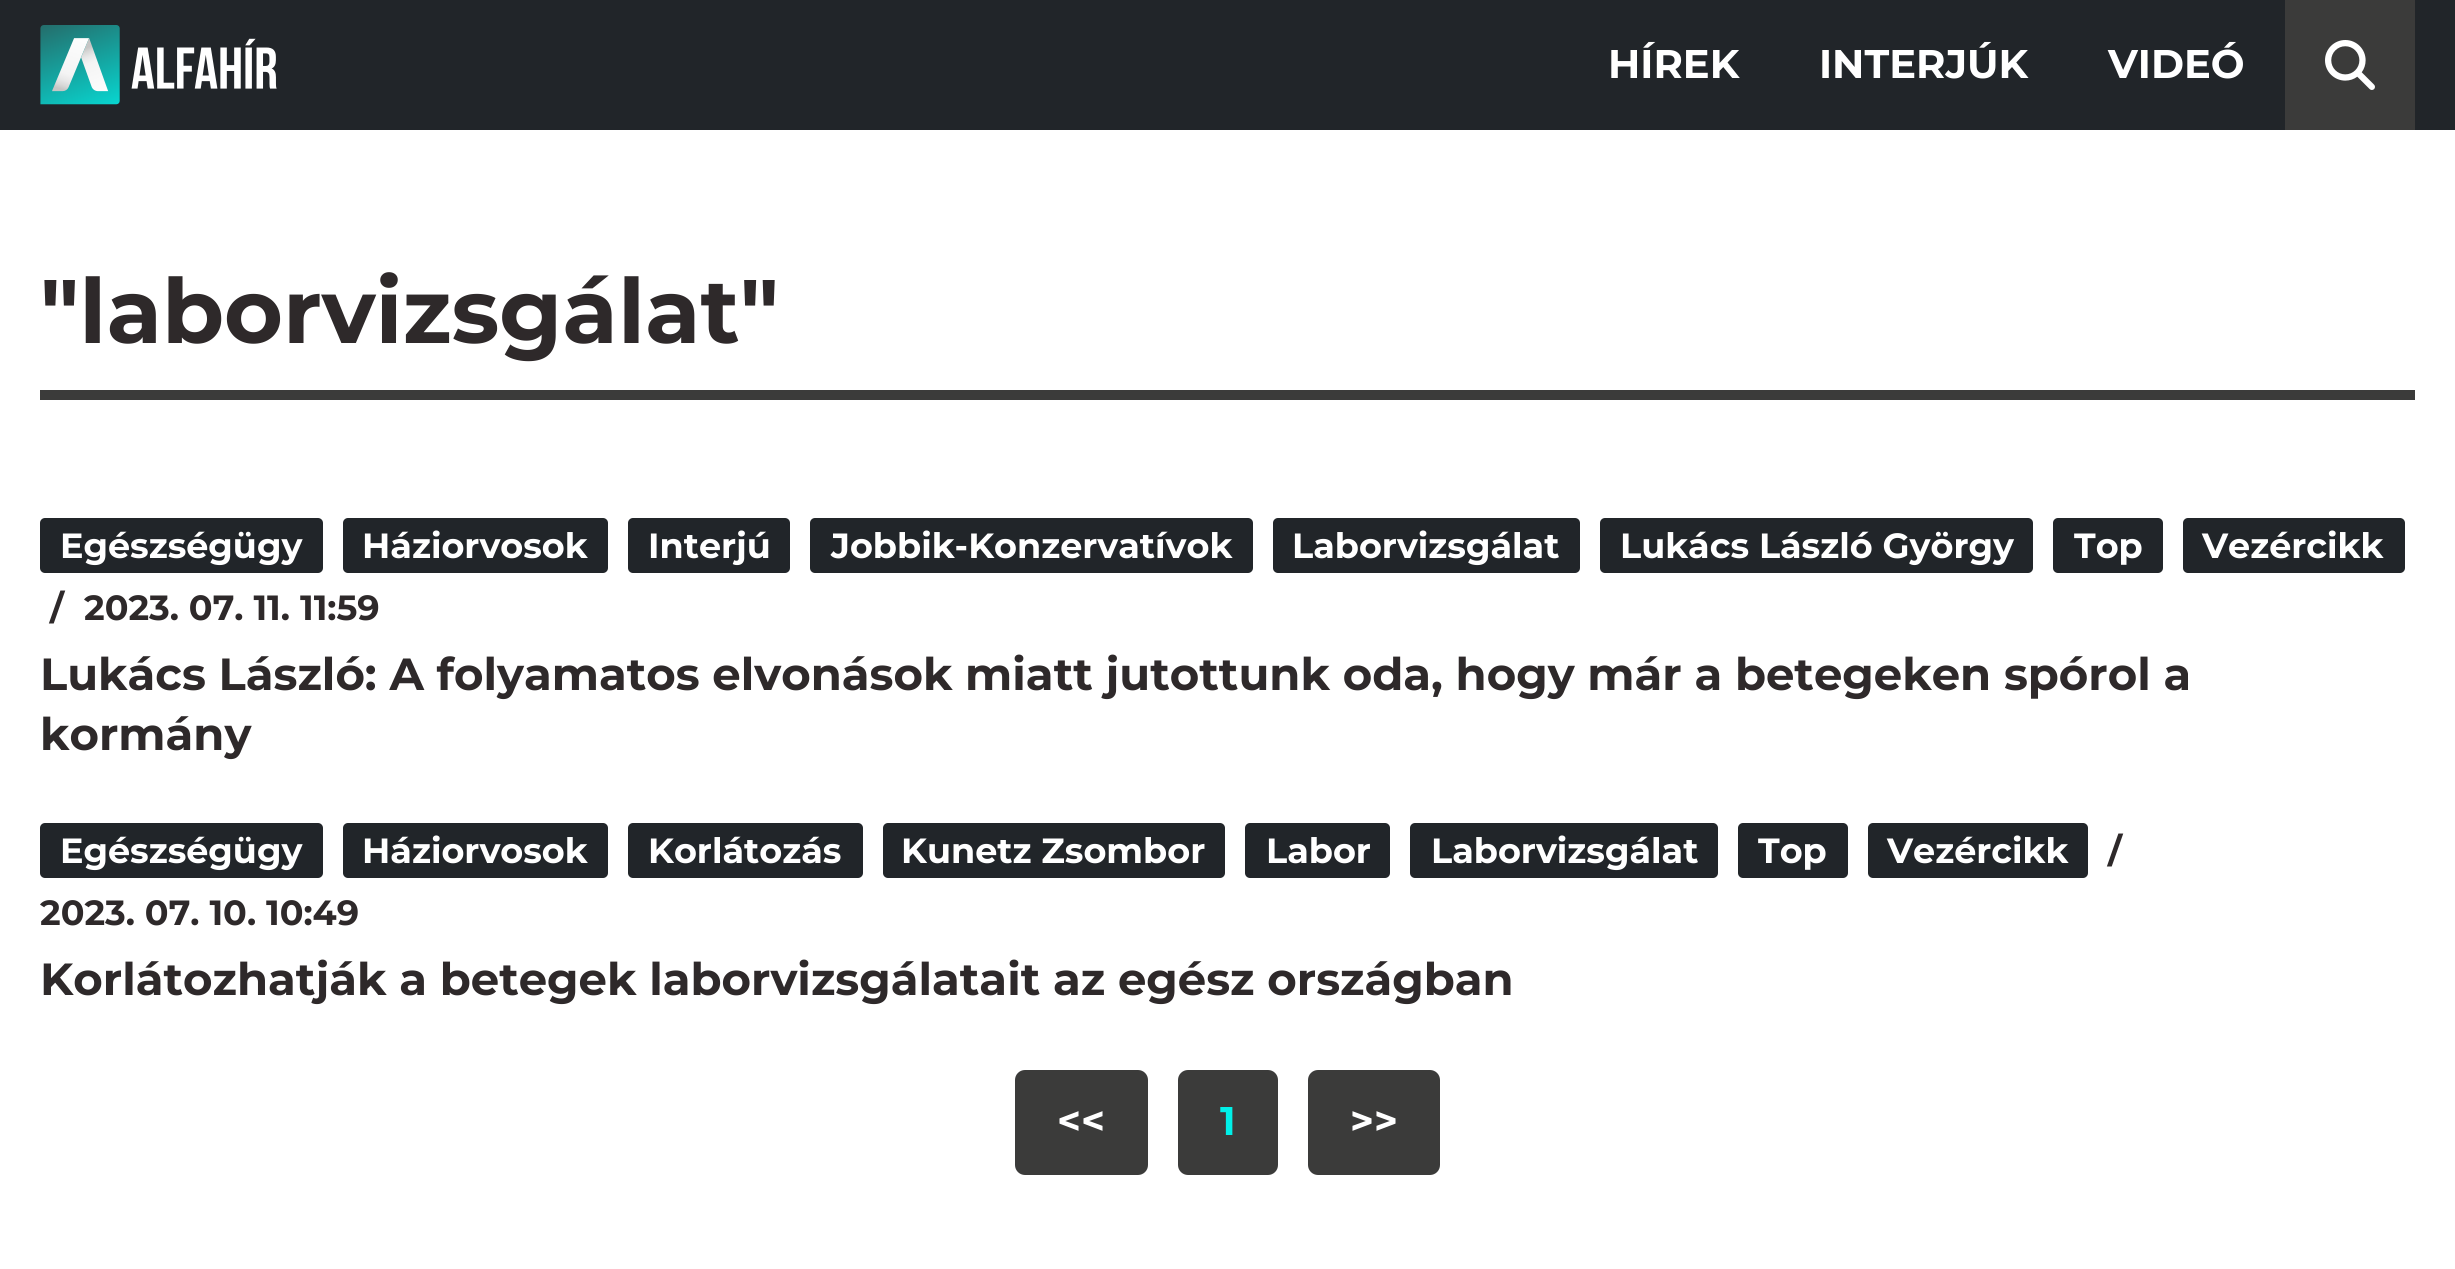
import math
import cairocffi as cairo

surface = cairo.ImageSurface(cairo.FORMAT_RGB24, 2455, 1269)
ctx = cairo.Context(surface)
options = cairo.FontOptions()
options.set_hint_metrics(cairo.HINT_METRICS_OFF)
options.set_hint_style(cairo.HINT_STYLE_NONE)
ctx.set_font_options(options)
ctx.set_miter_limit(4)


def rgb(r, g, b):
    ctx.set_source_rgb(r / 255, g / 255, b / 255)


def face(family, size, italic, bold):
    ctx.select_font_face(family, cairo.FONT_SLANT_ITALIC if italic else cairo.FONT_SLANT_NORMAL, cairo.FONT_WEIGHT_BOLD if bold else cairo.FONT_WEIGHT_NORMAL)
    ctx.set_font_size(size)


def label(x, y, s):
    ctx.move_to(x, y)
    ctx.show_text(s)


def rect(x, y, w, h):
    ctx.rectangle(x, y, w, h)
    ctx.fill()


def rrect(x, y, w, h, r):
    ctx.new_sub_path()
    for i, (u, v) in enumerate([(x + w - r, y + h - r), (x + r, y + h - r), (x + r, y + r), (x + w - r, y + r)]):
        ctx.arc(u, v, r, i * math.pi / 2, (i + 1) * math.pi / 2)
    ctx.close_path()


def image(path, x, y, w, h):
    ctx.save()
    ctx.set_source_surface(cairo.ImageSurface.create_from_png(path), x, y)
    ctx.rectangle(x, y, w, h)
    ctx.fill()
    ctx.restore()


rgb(255, 255, 255)
ctx.paint()
rgb(33, 37, 41)
rect(0, 0, 2455, 130)
image('image0.png', 40, 25, 237, 80)
face('Montserrat', 40, 0, 1)
rgb(255, 255, 255)
label(1608, 78, 'HÍREK')
label(1819, 78, 'INTERJÚK')
label(2108, 78, 'VIDEÓ')
rgb(59, 59, 58)
rect(2285, 0, 130, 130)
image('image1.png', 2325, 40, 50, 50)
rect(40, 390, 2375, 10)
face('Montserrat', 90, 0, 1)
rgb(46, 41, 42)
label(40, 343, '"laborvizsgálat"')
rgb(33, 37, 41)
rrect(40, 518, 283, 55, 5)
ctx.fill()
face('Montserrat', 35, 0, 1)
rgb(255, 255, 255)
label(60, 558, 'Egészségügy')
rgb(33, 37, 41)
rrect(343, 518, 265, 55, 5)
ctx.fill()
rgb(255, 255, 255)
label(362, 558, 'Háziorvosok')
rgb(33, 37, 41)
rrect(628, 518, 162, 55, 5)
ctx.fill()
rgb(255, 255, 255)
label(648, 558, 'Interjú')
rgb(33, 37, 41)
rrect(810, 518, 443, 55, 5)
ctx.fill()
rgb(255, 255, 255)
label(831, 558, 'Jobbik-Konzervatívok')
rgb(33, 37, 41)
rrect(1273, 518, 307, 55, 5)
ctx.fill()
rgb(255, 255, 255)
label(1292, 558, 'Laborvizsgálat')
rgb(33, 37, 41)
rrect(1600, 518, 433, 55, 5)
ctx.fill()
rgb(255, 255, 255)
label(1620, 558, 'Lukács László György')
rgb(33, 37, 41)
rrect(2053, 518, 110, 55, 5)
ctx.fill()
rgb(255, 255, 255)
label(2074, 558, 'Top')
rgb(33, 37, 41)
rrect(2183, 518, 222, 55, 5)
ctx.fill()
rgb(255, 255, 255)
label(2202, 558, 'Vezércikk')
rgb(46, 41, 42)
label(50, 620, '/')
label(84, 620, '2023. 07. 11. 11:59')
face('Montserrat', 45, 0, 1)
label(40, 690, 'Lukács László: A folyamatos elvonások miatt jutottunk oda, hogy már a betegeken spórol a')
label(40, 750, 'kormány')
rgb(33, 37, 41)
rrect(40, 823, 283, 55, 5)
ctx.fill()
face('Montserrat', 35, 0, 1)
rgb(255, 255, 255)
label(60, 863, 'Egészségügy')
rgb(33, 37, 41)
rrect(343, 823, 265, 55, 5)
ctx.fill()
rgb(255, 255, 255)
label(362, 863, 'Háziorvosok')
rgb(33, 37, 41)
rrect(628, 823, 235, 55, 5)
ctx.fill()
rgb(255, 255, 255)
label(648, 863, 'Korlátozás')
rgb(33, 37, 41)
rrect(883, 823, 342, 55, 5)
ctx.fill()
rgb(255, 255, 255)
label(901, 863, 'Kunetz Zsombor')
rgb(33, 37, 41)
rrect(1245, 823, 145, 55, 5)
ctx.fill()
rgb(255, 255, 255)
label(1266, 863, 'Labor')
rgb(33, 37, 41)
rrect(1410, 823, 308, 55, 5)
ctx.fill()
rgb(255, 255, 255)
label(1431, 863, 'Laborvizsgálat')
rgb(33, 37, 41)
rrect(1738, 823, 110, 55, 5)
ctx.fill()
rgb(255, 255, 255)
label(1758, 863, 'Top')
rgb(33, 37, 41)
rrect(1868, 823, 220, 55, 5)
ctx.fill()
rgb(255, 255, 255)
label(1887, 863, 'Vezércikk')
rgb(46, 41, 42)
label(2108, 863, '/')
label(40, 925, '2023. 07. 10. 10:49')
face('Montserrat', 45, 0, 1)
label(40, 995, 'Korlátozhatják a betegek laborvizsgálatait az egész országban')
rgb(59, 59, 58)
rrect(1016.5, 1071.5, 130, 102, 8.5)
ctx.fill_preserve()
ctx.set_line_width(3)
ctx.stroke()
face('Montserrat', 40, 0, 1)
rgb(255, 255, 255)
label(1057, 1135, '<<')
rgb(59, 59, 58)
rrect(1179.5, 1071.5, 97, 102, 8.5)
ctx.fill_preserve()
ctx.stroke()
rgb(0, 240, 232)
label(1220, 1135, '1')
rgb(59, 59, 58)
rrect(1309.5, 1071.5, 129, 102, 8.5)
ctx.fill_preserve()
ctx.stroke()
rgb(255, 255, 255)
label(1350, 1135, '>>')
surface.write_to_png('render.png')
